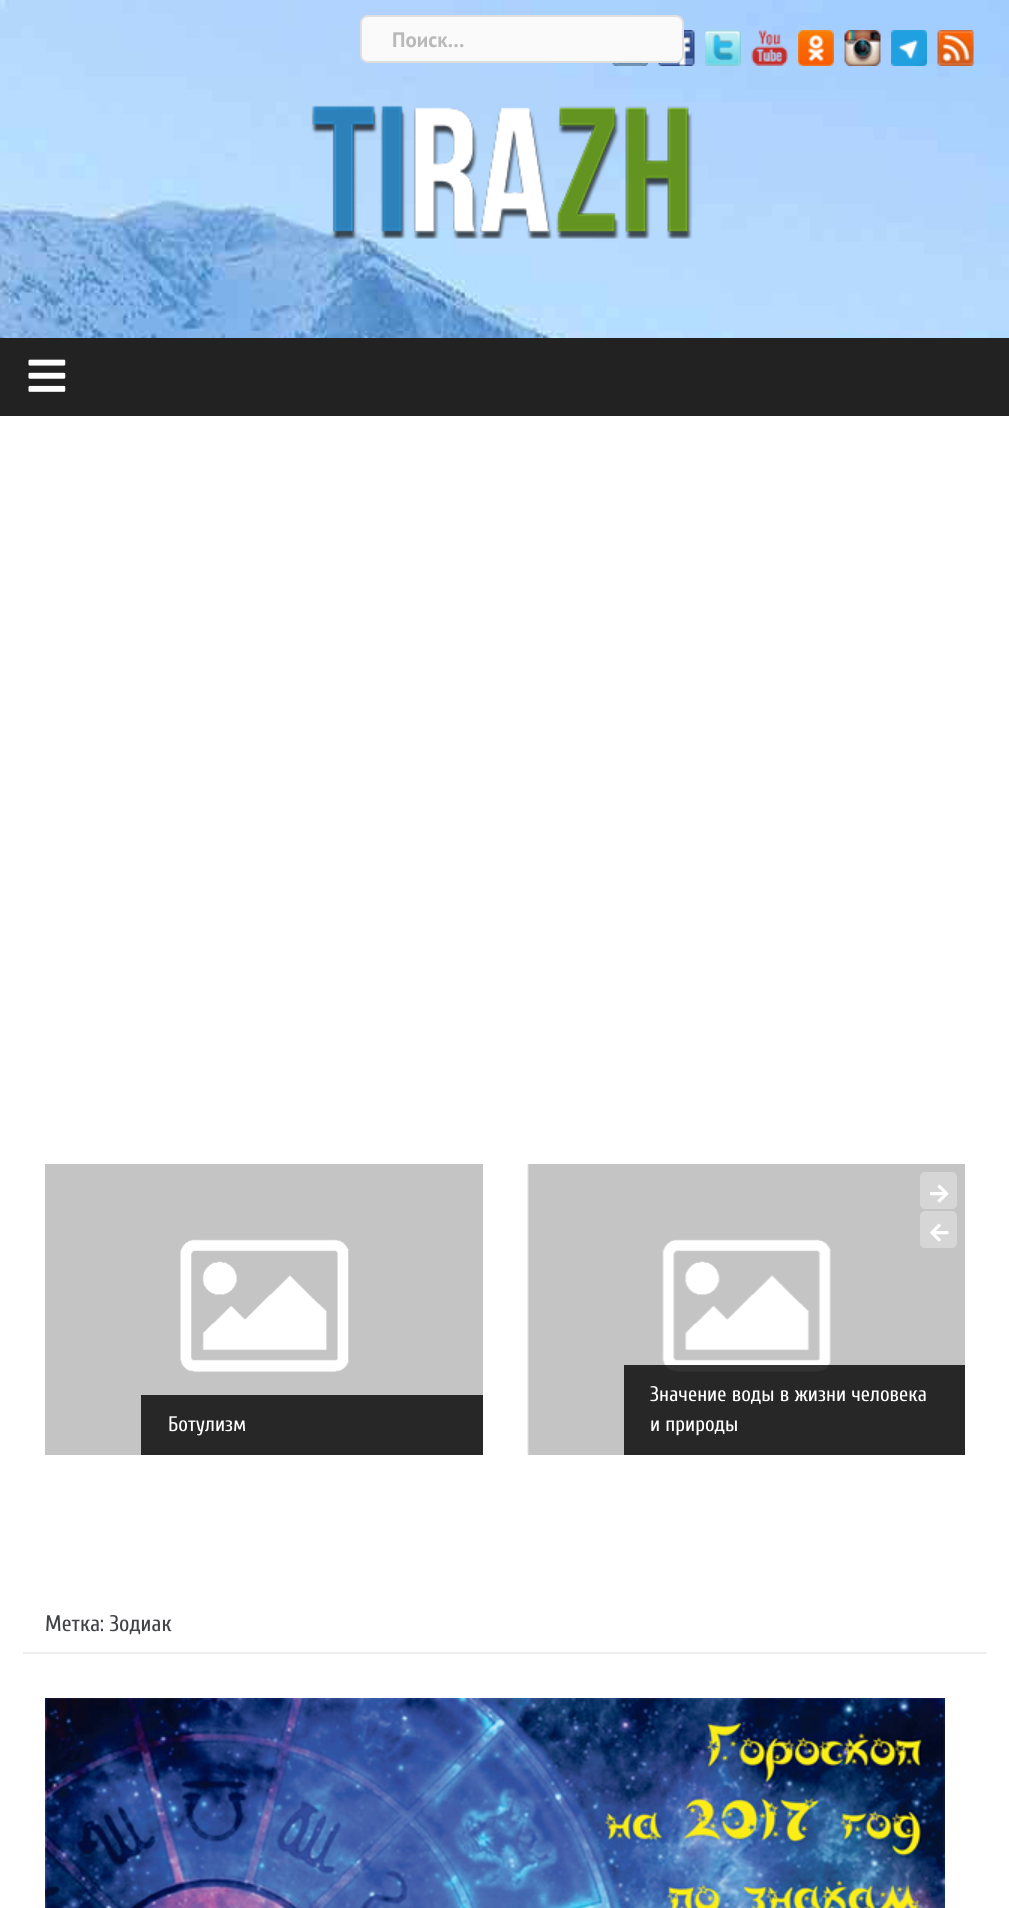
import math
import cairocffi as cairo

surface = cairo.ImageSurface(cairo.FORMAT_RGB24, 1009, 1908)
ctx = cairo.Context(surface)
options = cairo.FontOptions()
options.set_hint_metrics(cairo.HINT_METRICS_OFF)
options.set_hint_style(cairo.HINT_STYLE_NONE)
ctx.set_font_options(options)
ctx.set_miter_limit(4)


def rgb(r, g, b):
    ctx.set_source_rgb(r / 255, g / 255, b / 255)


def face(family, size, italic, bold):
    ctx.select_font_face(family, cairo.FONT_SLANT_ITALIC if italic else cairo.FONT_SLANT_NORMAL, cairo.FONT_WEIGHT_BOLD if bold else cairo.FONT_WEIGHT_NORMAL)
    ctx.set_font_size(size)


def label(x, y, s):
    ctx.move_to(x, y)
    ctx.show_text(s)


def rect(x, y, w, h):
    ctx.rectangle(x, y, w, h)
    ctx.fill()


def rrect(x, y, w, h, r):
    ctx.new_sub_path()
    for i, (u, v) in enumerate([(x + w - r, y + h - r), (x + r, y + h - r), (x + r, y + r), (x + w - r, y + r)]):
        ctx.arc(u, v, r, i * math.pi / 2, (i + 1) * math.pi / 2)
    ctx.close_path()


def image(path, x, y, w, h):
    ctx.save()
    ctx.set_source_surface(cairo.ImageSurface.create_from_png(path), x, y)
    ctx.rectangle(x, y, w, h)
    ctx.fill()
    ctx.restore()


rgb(255, 255, 255)
ctx.paint()
image('image0.png', 0, 0, 1009, 338)
image('image2.png', 658, 30, 37, 36)
rgb(250, 250, 250)
rrect(361, 16, 322, 46, 7)
ctx.fill_preserve()
rgb(223, 223, 223)
ctx.stroke()
face('PT Sans', 21, 0, 1)
rgb(185, 185, 185)
label(392, 47, 'Поиск…')
image('image1.png', 612, 63, 36, 3)
image('image3.png', 705, 30, 36, 36)
image('image4.png', 751, 30, 37, 36)
image('image5.png', 798, 30, 36, 36)
image('image6.png', 844, 30, 37, 36)
image('image7.png', 891, 30, 36, 36)
image('image8.png', 937, 30, 37, 36)
image('image9.png', 311, 105, 382, 134)
rgb(34, 34, 34)
rect(0, 338, 1009, 78)
image('image10.png', 28, 359, 38, 33)
image('image14.png', 527, 1164, 438, 291)
rgb(214, 214, 214)
rrect(920, 1172, 37, 37, 5)
ctx.fill()
image('image11.png', 930, 1184, 19, 19)
rrect(920, 1211, 37, 37, 5)
ctx.fill()
image('image12.png', 930, 1223, 19, 19)
image('image13.png', 45, 1164, 438, 291)
rgb(39, 39, 39)
rect(141, 1395, 342, 60)
face('Cuprum', 21, 0, 0)
rgb(255, 255, 255)
label(168, 1431, 'Ботулизм')
ctx.set_source_rgba(0, 0, 0, 0.8)
rect(624, 1365, 341, 90)
rgb(255, 255, 255)
label(650, 1401, 'Значение воды в жизни человека')
label(650, 1431, 'и природы')
rgb(238, 238, 238)
rect(23, 1652, 964, 2)
face('Cuprum', 22.5, 0, 0)
rgb(66, 67, 71)
label(45, 1631, 'Метка: Зодиак')
image('image15.png', 45, 1698, 900, 210)
surface.write_to_png('render.png')
